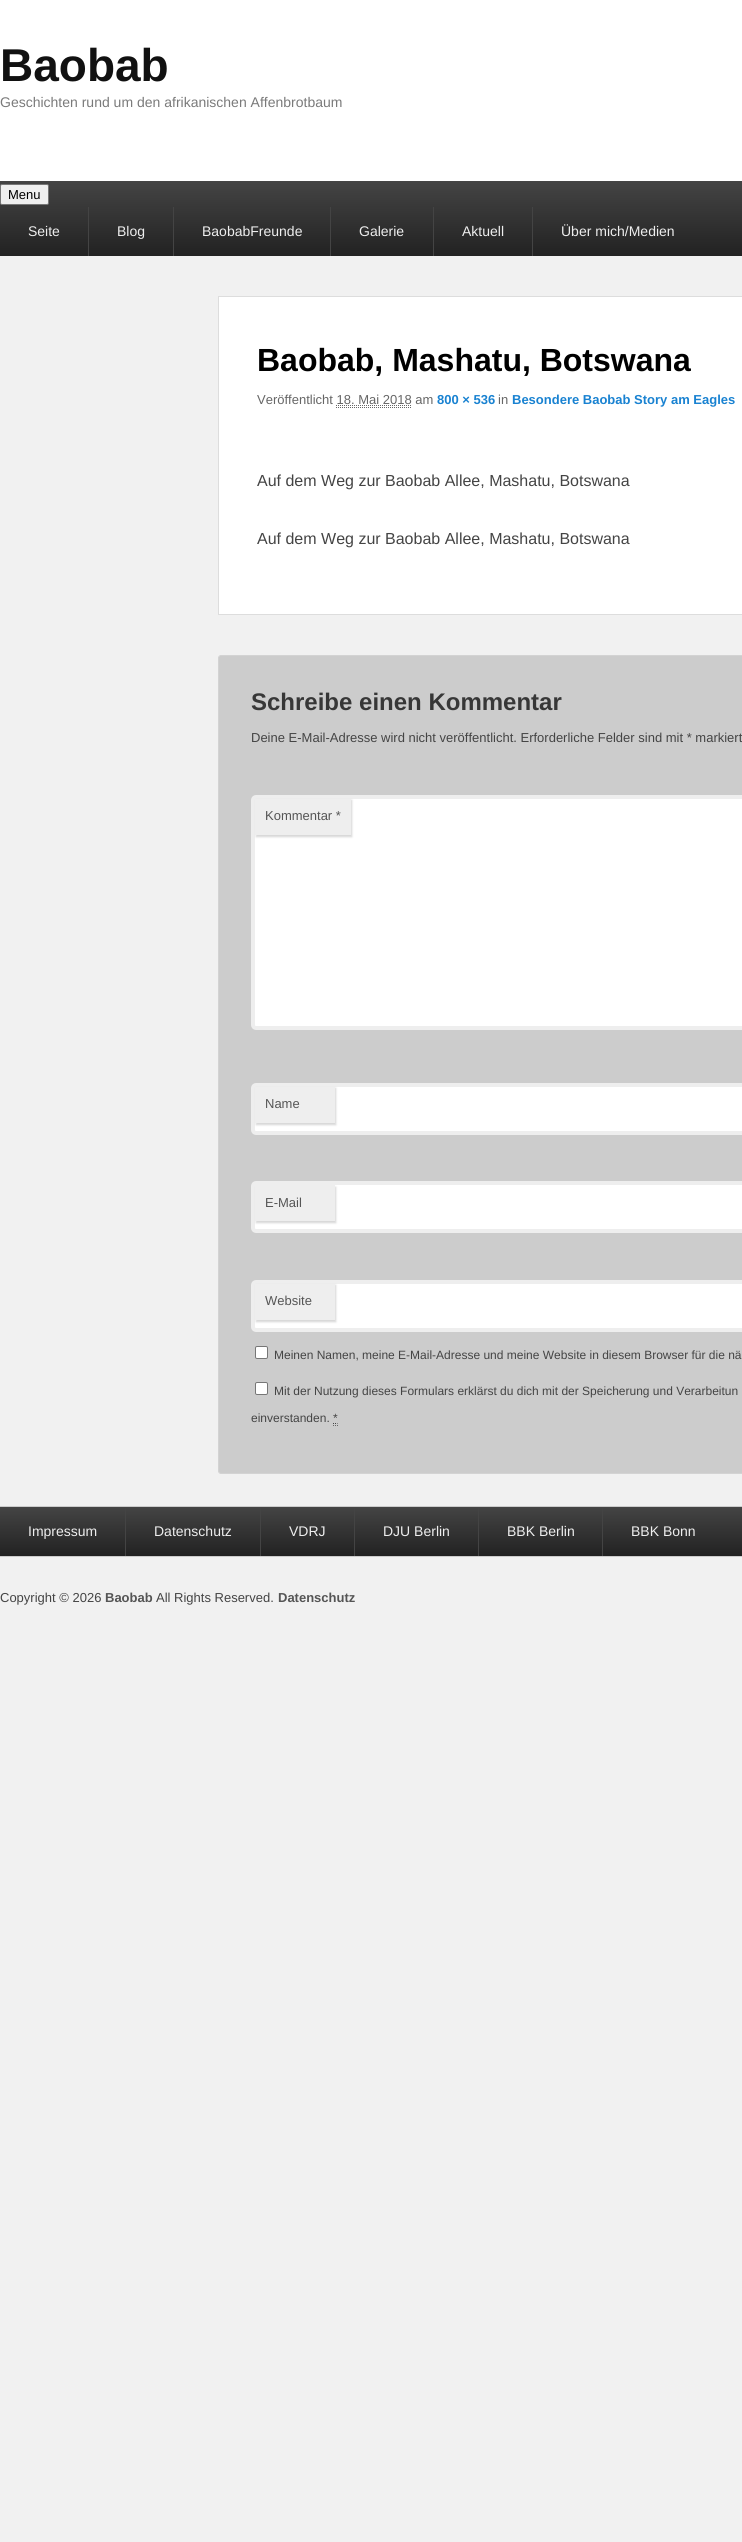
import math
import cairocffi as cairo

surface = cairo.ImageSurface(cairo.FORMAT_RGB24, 742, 2542)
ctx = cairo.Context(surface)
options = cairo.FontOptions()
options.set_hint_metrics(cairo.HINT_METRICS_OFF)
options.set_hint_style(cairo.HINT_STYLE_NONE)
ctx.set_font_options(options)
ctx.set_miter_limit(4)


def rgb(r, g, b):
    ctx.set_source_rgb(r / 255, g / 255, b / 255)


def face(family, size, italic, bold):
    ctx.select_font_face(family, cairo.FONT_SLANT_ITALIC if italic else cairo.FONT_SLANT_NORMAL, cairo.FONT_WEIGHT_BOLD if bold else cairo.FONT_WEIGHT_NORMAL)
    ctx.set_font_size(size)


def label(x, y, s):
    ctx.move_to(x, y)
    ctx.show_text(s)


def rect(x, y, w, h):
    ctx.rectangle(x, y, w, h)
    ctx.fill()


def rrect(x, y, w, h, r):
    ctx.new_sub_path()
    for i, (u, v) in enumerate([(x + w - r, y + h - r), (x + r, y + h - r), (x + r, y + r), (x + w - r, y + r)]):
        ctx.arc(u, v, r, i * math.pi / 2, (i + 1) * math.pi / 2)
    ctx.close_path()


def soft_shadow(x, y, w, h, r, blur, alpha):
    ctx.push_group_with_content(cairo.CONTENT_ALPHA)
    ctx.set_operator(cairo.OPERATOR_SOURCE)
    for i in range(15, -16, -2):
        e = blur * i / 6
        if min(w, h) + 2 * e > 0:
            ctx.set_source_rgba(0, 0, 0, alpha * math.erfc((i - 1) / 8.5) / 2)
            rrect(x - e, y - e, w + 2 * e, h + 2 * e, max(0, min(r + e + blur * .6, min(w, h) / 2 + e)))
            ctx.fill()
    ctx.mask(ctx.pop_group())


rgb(241, 241, 241)
ctx.paint()
rgb(255, 255, 255)
rect(0, 0, 742, 181)
face('Liberation Sans', 46, 0, 1)
rgb(17, 17, 17)
label(0, 81, 'Baobab')
face('Liberation Sans', 14, 0, 0)
rgb(122, 122, 122)
label(0, 107, 'Geschichten rund um den afrikanischen Affenbrotbaum')
gradient = cairo.LinearGradient(371, 181, 371, 256)
gradient.add_color_stop_rgba(0, 0.267, 0.267, 0.267, 1)
gradient.add_color_stop_rgba(1, 0.133, 0.133, 0.133, 1)
ctx.set_source(gradient)
rect(0, 181, 742, 75)
rgb(239, 239, 239)
rrect(0.5, 184.5, 48, 20, 1.5)
ctx.fill_preserve()
rgb(118, 118, 118)
ctx.set_line_width(1)
ctx.stroke()
face('Liberation Sans', 13, 0, 0)
rgb(0, 0, 0)
label(8, 199, 'Menu')
rgb(68, 68, 68)
rect(88, 207, 1, 49)
face('Liberation Sans', 14, 0, 0)
rgb(238, 238, 238)
label(28, 236, 'Seite')
rgb(68, 68, 68)
rect(173, 207, 1, 49)
rgb(238, 238, 238)
label(117, 236, 'Blog')
rgb(68, 68, 68)
rect(330, 207, 1, 49)
rgb(238, 238, 238)
label(202, 236, 'BaobabFreunde')
rgb(68, 68, 68)
rect(433, 207, 1, 49)
rgb(238, 238, 238)
label(359, 236, 'Galerie')
rgb(68, 68, 68)
rect(532, 207, 1, 49)
rgb(238, 238, 238)
label(462, 236, 'Aktuell')
label(561, 236, 'Über mich/Medien')
rgb(255, 255, 255)
ctx.rectangle(218.5, 296.5, 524, 318)
ctx.fill_preserve()
rgb(221, 221, 221)
ctx.stroke()
face('Liberation Sans', 32, 0, 1)
rgb(0, 0, 0)
label(257, 371, 'Baobab, Mashatu, Botswana')
face('Liberation Sans', 13, 0, 0)
rgb(102, 102, 102)
label(257, 404, 'Veröffentlicht 18. Mai 2018 am')
face('Liberation Sans', 13, 0, 1)
rgb(25, 130, 209)
label(437, 404, '800 × 536')
face('Liberation Sans', 13, 0, 0)
rgb(102, 102, 102)
label(498, 404, 'in')
face('Liberation Sans', 13, 0, 1)
rgb(25, 130, 209)
label(512, 404, 'Besondere Baobab Story am Eagles')
ctx.new_path()
ctx.move_to(336, 405.5)
ctx.line_to(411.5, 405.5)
rgb(102, 102, 102)
ctx.set_dash([1, 1])
ctx.stroke()
ctx.new_path()
ctx.move_to(336, 407.5)
ctx.line_to(411, 407.5)
ctx.stroke()
face('Liberation Sans', 16, 0, 0)
rgb(68, 68, 68)
label(257, 486, 'Auf dem Weg zur Baobab Allee, Mashatu, Botswana')
label(257, 544, 'Auf dem Weg zur Baobab Allee, Mashatu, Botswana')
rgb(204, 204, 204)
rrect(218.5, 655.5, 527, 818, 2.5)
ctx.fill_preserve()
rgb(211, 211, 211)
ctx.set_dash([])
ctx.stroke()
face('Liberation Sans', 24, 0, 1)
rgb(55, 55, 55)
label(251, 710, 'Schreibe einen Kommentar')
face('Liberation Sans', 13, 0, 0)
rgb(68, 68, 68)
label(251, 742, 'Deine E-Mail-Adresse wird nicht veröffentlicht. Erforderliche Felder sind mit * markiert')
rgb(255, 255, 255)
rrect(253, 797, 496, 231, 3)
ctx.fill_preserve()
rgb(238, 238, 238)
ctx.set_line_width(4)
ctx.stroke()
rgb(204, 204, 204)
soft_shadow(256, 800, 96, 37, 0, 1, 0.8)
rgb(238, 238, 238)
rect(255, 799, 96, 36)
rgb(85, 85, 85)
label(265, 820, 'Kommentar *')
rgb(255, 255, 255)
rrect(253, 1085, 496, 48, 3)
ctx.fill_preserve()
rgb(238, 238, 238)
ctx.stroke()
rgb(204, 204, 204)
soft_shadow(256, 1088, 80, 37, 0, 1, 0.8)
rgb(238, 238, 238)
rect(255, 1087, 80, 36)
rgb(85, 85, 85)
label(265, 1108, 'Name')
rgb(255, 255, 255)
rrect(253, 1183, 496, 48, 3)
ctx.fill_preserve()
rgb(238, 238, 238)
ctx.stroke()
rgb(204, 204, 204)
soft_shadow(256, 1187, 80, 36, 0, 1, 0.8)
rgb(238, 238, 238)
rect(255, 1185, 80, 36)
rgb(85, 85, 85)
label(265, 1207, 'E-Mail')
rgb(255, 255, 255)
rrect(253, 1282, 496, 48, 3)
ctx.fill_preserve()
rgb(238, 238, 238)
ctx.stroke()
rgb(204, 204, 204)
soft_shadow(256, 1285, 80, 37, 0, 1, 0.8)
rgb(238, 238, 238)
rect(255, 1284, 80, 36)
rgb(85, 85, 85)
label(265, 1305, 'Website')
rgb(255, 255, 255)
rrect(255.5, 1346.5, 12, 12, 1.5)
ctx.fill_preserve()
rgb(118, 118, 118)
ctx.set_line_width(1)
ctx.stroke()
face('Liberation Sans', 12, 0, 0)
rgb(68, 68, 68)
label(274, 1359, 'Meinen Namen, meine E-Mail-Adresse und meine Website in diesem Browser für die nä')
rgb(255, 255, 255)
rrect(255.5, 1382.5, 12, 12, 1.5)
ctx.fill_preserve()
rgb(118, 118, 118)
ctx.stroke()
rgb(68, 68, 68)
label(274, 1395, 'Mit der Nutzung dieses Formulars erklärst du dich mit der Speicherung und Verarbeitun')
label(251, 1422, 'einverstanden. *')
ctx.new_path()
ctx.move_to(333, 1425.5)
ctx.line_to(334, 1425.5)
ctx.move_to(335, 1425.5)
ctx.line_to(336, 1425.5)
ctx.move_to(337, 1425.5)
ctx.line_to(338, 1425.5)
rgb(102, 102, 102)
ctx.stroke()
ctx.new_path()
ctx.move_to(333, 1423.5)
ctx.line_to(334, 1423.5)
ctx.move_to(335, 1423.5)
ctx.line_to(336, 1423.5)
ctx.move_to(337, 1423.5)
ctx.line_to(337.5, 1423.5)
rgb(68, 68, 68)
ctx.stroke()
rgb(204, 204, 204)
rect(0, 1506, 742, 1)
gradient = cairo.LinearGradient(371, 1507, 371, 1556)
gradient.add_color_stop_rgba(0, 0.267, 0.267, 0.267, 1)
gradient.add_color_stop_rgba(1, 0.133, 0.133, 0.133, 1)
ctx.set_source(gradient)
rect(0, 1507, 742, 49)
face('Liberation Sans', 14, 0, 0)
rgb(238, 238, 238)
label(28, 1536, 'Impressum')
rgb(68, 68, 68)
rect(125, 1507, 1, 49)
rgb(238, 238, 238)
label(154, 1536, 'Datenschutz')
rgb(68, 68, 68)
rect(260, 1507, 1, 49)
rgb(238, 238, 238)
label(289, 1536, 'VDRJ')
rgb(68, 68, 68)
rect(354, 1507, 1, 49)
rgb(238, 238, 238)
label(383, 1536, 'DJU Berlin')
rgb(68, 68, 68)
rect(478, 1507, 1, 49)
rgb(238, 238, 238)
label(507, 1536, 'BBK Berlin')
rgb(68, 68, 68)
rect(602, 1507, 1, 49)
rgb(238, 238, 238)
label(631, 1536, 'BBK Bonn')
rgb(204, 204, 204)
rect(0, 1556, 742, 1)
face('Liberation Sans', 13, 0, 0)
rgb(68, 68, 68)
label(0, 1602, 'Copyright © 2026')
face('Liberation Sans', 13, 0, 1)
rgb(85, 85, 85)
label(105, 1602, 'Baobab')
face('Liberation Sans', 13, 0, 0)
rgb(68, 68, 68)
label(156, 1602, 'All Rights Reserved.')
face('Liberation Sans', 13, 0, 1)
rgb(85, 85, 85)
label(278, 1602, 'Datenschutz')
surface.write_to_png('render.png')
